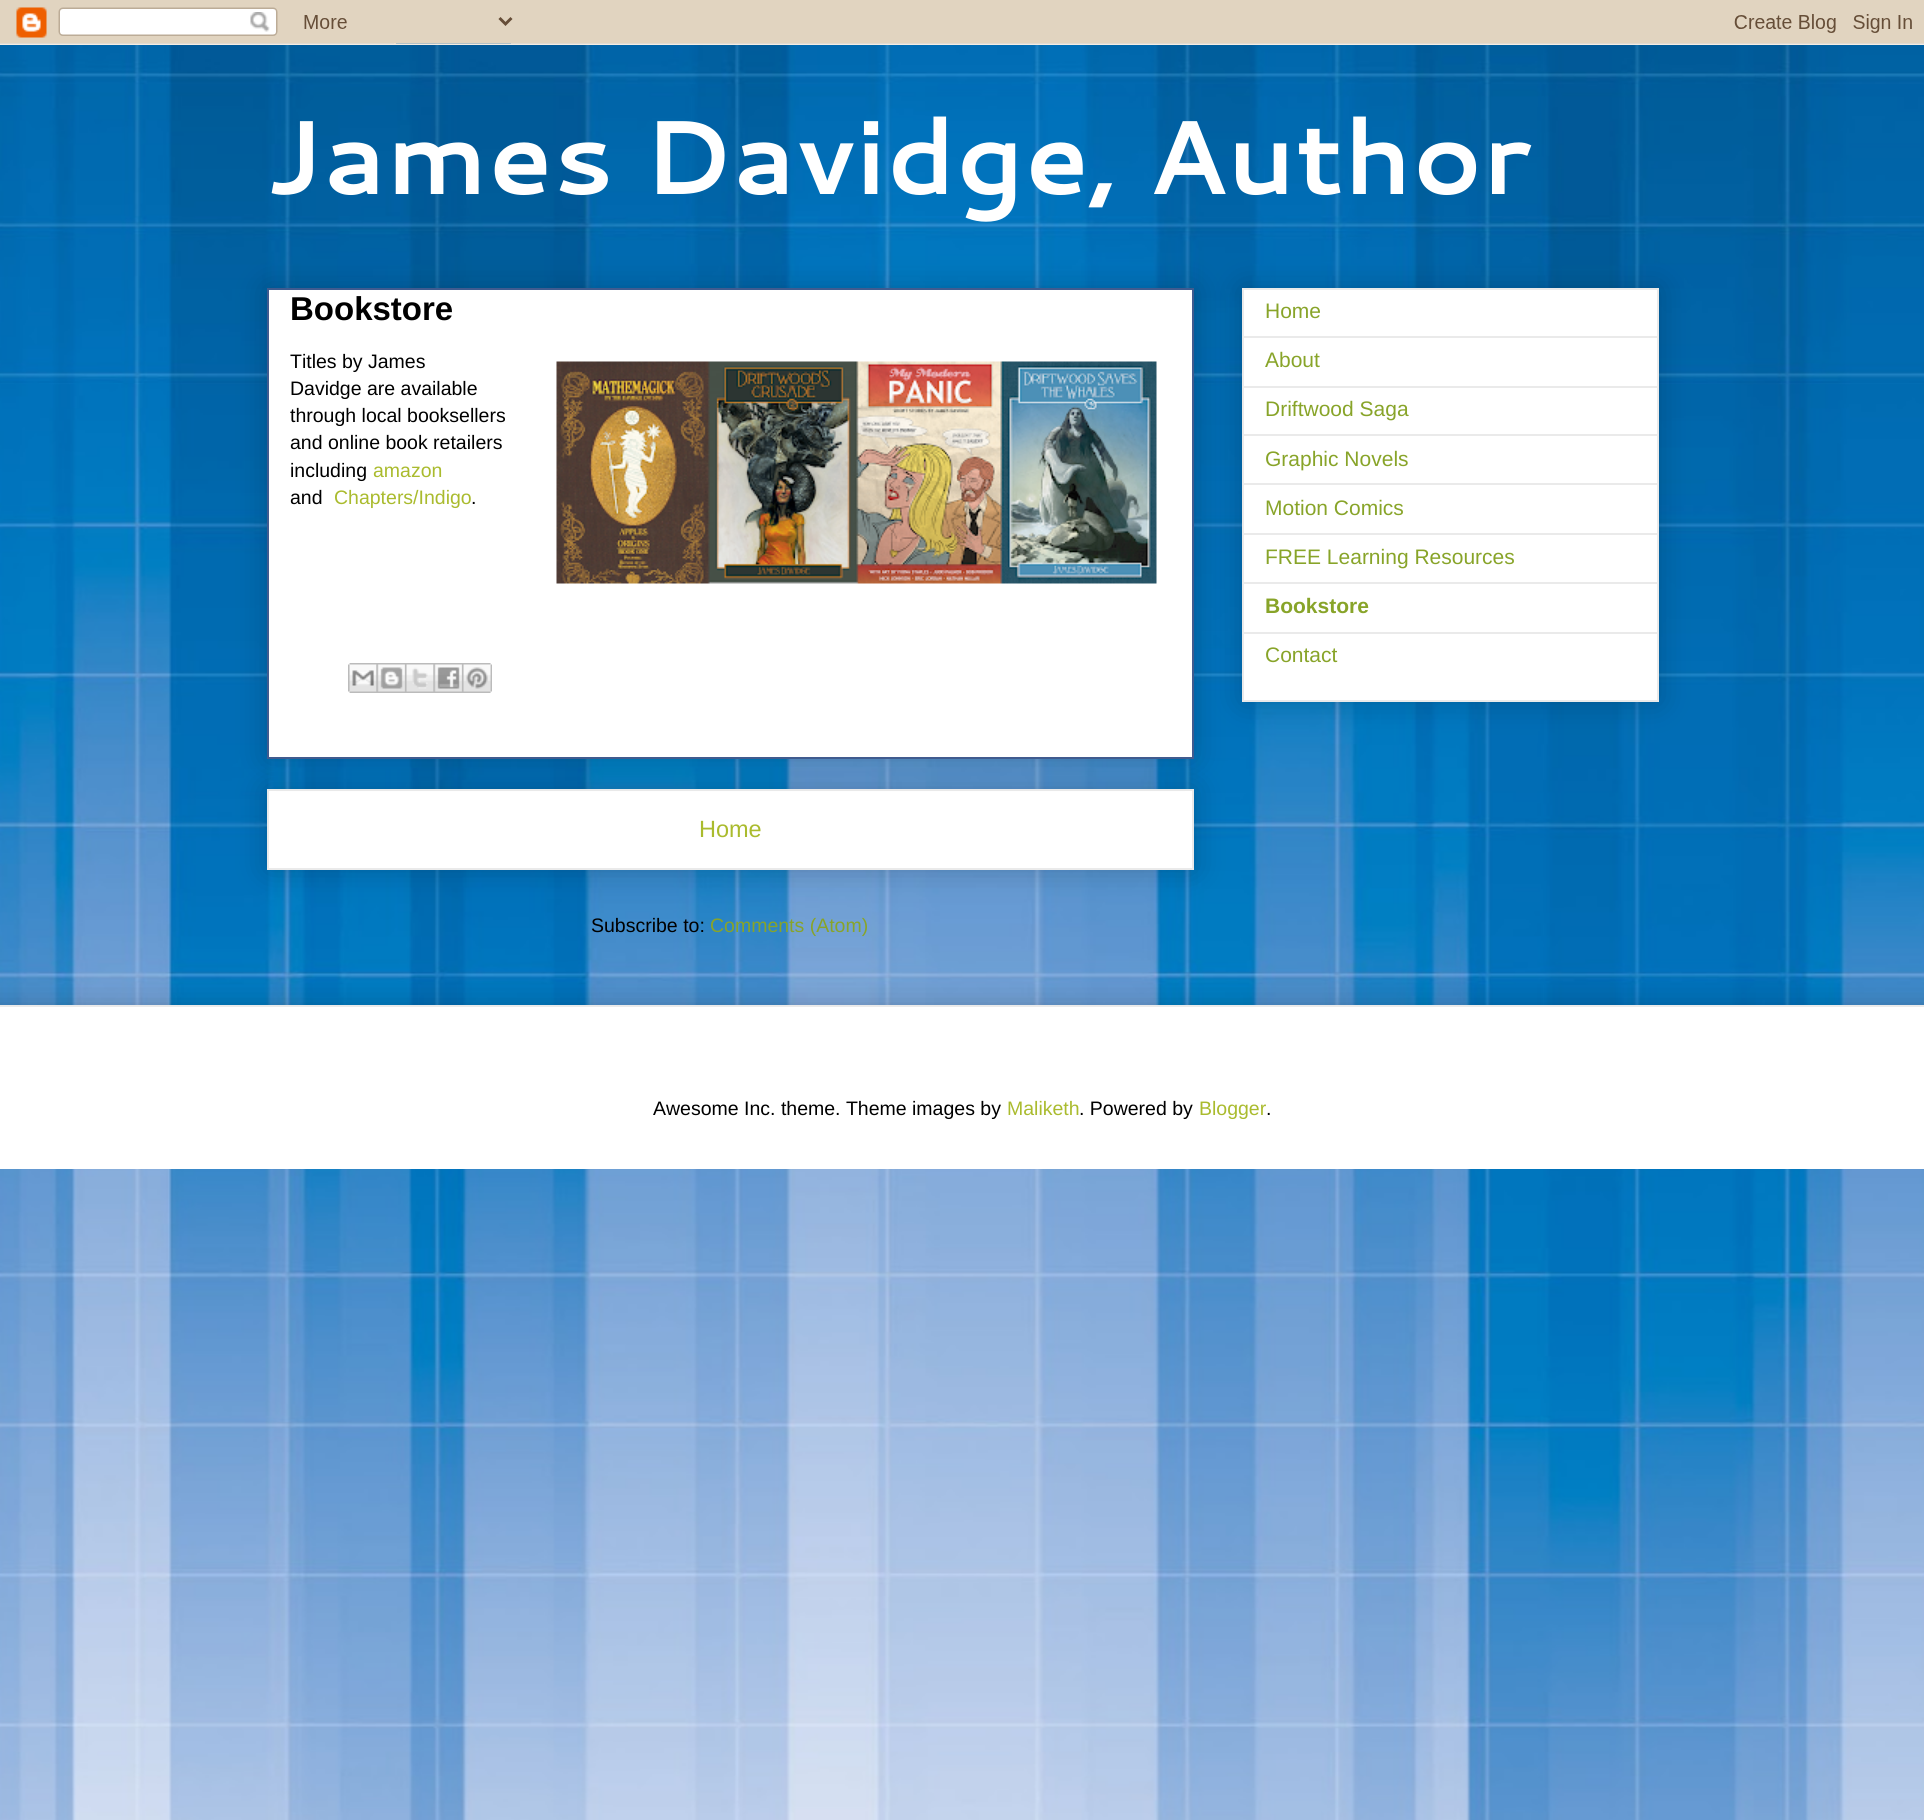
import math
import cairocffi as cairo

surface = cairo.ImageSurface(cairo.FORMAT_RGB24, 1924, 1820)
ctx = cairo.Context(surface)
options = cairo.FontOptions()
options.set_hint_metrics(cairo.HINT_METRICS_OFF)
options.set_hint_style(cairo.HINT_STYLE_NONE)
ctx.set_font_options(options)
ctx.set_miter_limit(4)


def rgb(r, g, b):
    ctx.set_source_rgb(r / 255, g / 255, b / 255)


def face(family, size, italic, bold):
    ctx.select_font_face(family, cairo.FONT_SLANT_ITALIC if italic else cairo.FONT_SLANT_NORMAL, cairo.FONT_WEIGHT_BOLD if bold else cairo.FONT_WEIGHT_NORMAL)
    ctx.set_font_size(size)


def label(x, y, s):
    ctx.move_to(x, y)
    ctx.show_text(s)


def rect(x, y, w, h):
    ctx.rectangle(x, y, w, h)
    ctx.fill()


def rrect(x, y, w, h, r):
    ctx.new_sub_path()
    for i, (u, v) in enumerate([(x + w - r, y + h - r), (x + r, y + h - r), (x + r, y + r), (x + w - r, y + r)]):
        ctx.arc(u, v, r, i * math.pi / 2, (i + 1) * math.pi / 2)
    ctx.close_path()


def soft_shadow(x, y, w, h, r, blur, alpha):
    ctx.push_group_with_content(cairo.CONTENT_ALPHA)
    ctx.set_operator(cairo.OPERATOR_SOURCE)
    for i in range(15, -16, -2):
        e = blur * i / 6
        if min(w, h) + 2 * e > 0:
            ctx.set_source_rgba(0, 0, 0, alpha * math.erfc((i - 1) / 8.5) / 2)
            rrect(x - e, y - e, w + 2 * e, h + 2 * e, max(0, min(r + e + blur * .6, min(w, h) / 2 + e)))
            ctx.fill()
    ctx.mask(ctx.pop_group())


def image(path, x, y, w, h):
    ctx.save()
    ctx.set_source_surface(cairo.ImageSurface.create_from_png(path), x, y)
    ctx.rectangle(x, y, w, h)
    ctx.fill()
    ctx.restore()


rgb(255, 255, 255)
ctx.paint()
image('image0.png', 0, 43, 1924, 1777)
image('image1.png', 0, 0, 1924, 45)
face('Cantarell', 105, 0, 1)
rgb(255, 255, 255)
label(266, 194, 'James Davidge, Author')
rgb(0, 0, 0)
soft_shadow(267, 789, 927, 81, 0, 15, 0.2)
rgb(255, 255, 255)
ctx.rectangle(268, 790, 925, 79)
ctx.fill_preserve()
rgb(234, 234, 234)
ctx.stroke()
rgb(0, 0, 0)
soft_shadow(267, 288, 927, 471, 0, 15, 0.2)
rgb(255, 255, 255)
ctx.rectangle(268, 289, 925, 469)
ctx.fill_preserve()
rgb(64, 91, 143)
ctx.stroke()
face('Liberation Sans', 33, 0, 1)
rgb(0, 0, 0)
label(290, 320, 'Bookstore')
face('Liberation Sans', 19.5, 0, 0)
label(290, 368, 'Titles by James')
label(290, 395, 'Davidge are available')
label(290, 422, 'through local booksellers')
label(290, 449, 'and online book retailers')
label(290, 477, 'including')
rgb(170, 187, 46)
label(373, 477, 'amazon')
rgb(0, 0, 0)
label(290, 504, 'and')
rgb(170, 187, 46)
label(334, 504, 'Chapters/Indigo')
rgb(0, 0, 0)
label(471, 504, '.')
image('image2.png', 556, 361, 601, 223)
image('image3.png', 348, 663, 29, 30)
image('image4.png', 376, 663, 29, 30)
image('image5.png', 405, 663, 29, 30)
image('image6.png', 433, 663, 29, 30)
image('image7.png', 462, 663, 30, 30)
face('Liberation Sans', 23.5, 0, 0)
rgb(170, 187, 46)
label(699, 837, 'Home')
face('Liberation Sans', 19.5, 0, 0)
rgb(0, 0, 0)
label(591, 932, 'Subscribe to:')
rgb(136, 164, 41)
label(710, 932, 'Comments (Atom)')
rgb(0, 0, 0)
soft_shadow(1242, 288, 417, 414, 0, 15, 0.2)
rgb(255, 255, 255)
ctx.rectangle(1243, 289, 415, 412)
ctx.fill_preserve()
rgb(234, 234, 234)
ctx.stroke()
face('Liberation Sans', 21, 0, 0)
rgb(136, 164, 41)
label(1265, 318, 'Home')
rgb(234, 234, 234)
rect(1244, 336, 414, 2)
rgb(136, 164, 41)
label(1265, 367, 'About')
rgb(234, 234, 234)
rect(1244, 386, 414, 2)
rgb(136, 164, 41)
label(1265, 416, 'Driftwood Saga')
rgb(234, 234, 234)
rect(1244, 434, 414, 2)
rgb(136, 164, 41)
label(1265, 466, 'Graphic Novels')
rgb(234, 234, 234)
rect(1244, 483, 414, 2)
rgb(136, 164, 41)
label(1265, 515, 'Motion Comics')
rgb(234, 234, 234)
rect(1244, 533, 414, 2)
rgb(136, 164, 41)
label(1265, 564, 'FREE Learning Resources')
rgb(234, 234, 234)
rect(1244, 582, 414, 2)
face('Liberation Sans', 21, 0, 1)
rgb(136, 164, 41)
label(1265, 613, 'Bookstore')
rgb(234, 234, 234)
rect(1244, 632, 414, 2)
face('Liberation Sans', 21, 0, 0)
rgb(136, 164, 41)
label(1265, 662, 'Contact')
ctx.save()
ctx.rectangle(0, 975, 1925, 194)
ctx.clip()
rgb(0, 0, 0)
soft_shadow(-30, 1005, 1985, 164, 0, 15, 0.2)
ctx.restore()
rgb(255, 255, 255)
rect(0, 1007, 1924, 162)
rgb(234, 234, 234)
rect(0, 1005, 1924, 2)
face('Liberation Sans', 19.5, 0, 0)
rgb(0, 0, 0)
label(653, 1115, 'Awesome Inc. theme. Theme images by')
rgb(170, 187, 46)
label(1007, 1115, 'Maliketh')
rgb(0, 0, 0)
label(1079, 1115, '. Powered by')
rgb(170, 187, 46)
label(1199, 1115, 'Blogger')
rgb(0, 0, 0)
label(1266, 1115, '.')
surface.write_to_png('render.png')
